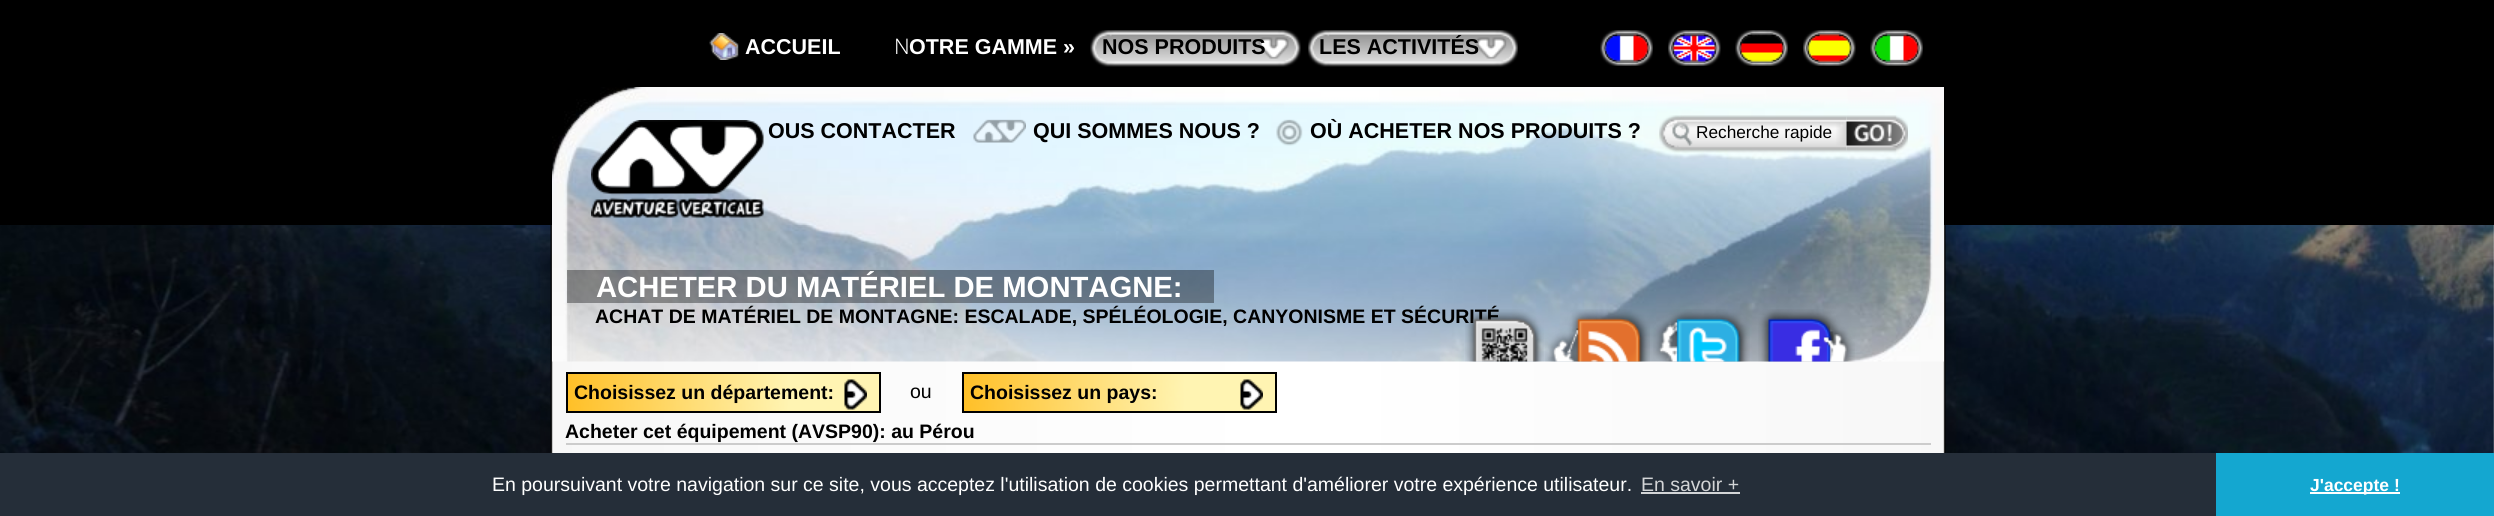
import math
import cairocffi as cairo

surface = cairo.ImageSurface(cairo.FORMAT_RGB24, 2494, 516)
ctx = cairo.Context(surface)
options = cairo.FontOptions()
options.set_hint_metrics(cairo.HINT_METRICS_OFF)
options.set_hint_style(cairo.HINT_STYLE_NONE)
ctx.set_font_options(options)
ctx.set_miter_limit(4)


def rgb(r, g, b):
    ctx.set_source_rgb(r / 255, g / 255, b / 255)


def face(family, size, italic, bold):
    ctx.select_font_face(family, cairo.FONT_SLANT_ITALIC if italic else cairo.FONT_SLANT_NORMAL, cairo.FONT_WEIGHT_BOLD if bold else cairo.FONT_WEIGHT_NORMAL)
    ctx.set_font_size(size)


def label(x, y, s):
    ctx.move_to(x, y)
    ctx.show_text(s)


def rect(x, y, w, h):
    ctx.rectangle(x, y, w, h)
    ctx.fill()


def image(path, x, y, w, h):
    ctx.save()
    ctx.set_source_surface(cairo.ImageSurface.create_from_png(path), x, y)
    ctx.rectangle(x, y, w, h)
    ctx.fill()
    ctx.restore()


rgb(255, 255, 255)
ctx.paint()
rgb(0, 0, 0)
rect(0, 0, 2494, 225)
image('image0.png', 709, 33, 30, 27)
face('Liberation Sans', 21.5, 0, 1)
rgb(255, 255, 255)
label(745, 54, 'ACCUEIL')
face('Noto Sans Light', 21.5, 0, 0)
label(894, 54, 'N')
face('Liberation Sans', 21.5, 0, 1)
label(909, 54, 'OTRE GAMME »')
image('image1.png', 1090, 30, 211, 37)
rgb(0, 0, 0)
label(1102, 54, 'NOS PRODUITS')
image('image2.png', 1308, 30, 210, 37)
label(1319, 54, 'LES ACTIVITÉS')
image('image3.png', 1600, 30, 53, 36)
image('image4.png', 1603, 33, 47, 30)
image('image5.png', 1668, 30, 53, 36)
image('image6.png', 1671, 33, 47, 30)
image('image3.png', 1735, 30, 53, 36)
image('image7.png', 1738, 33, 47, 30)
image('image8.png', 1803, 30, 53, 36)
image('image9.png', 1806, 33, 47, 30)
image('image3.png', 1870, 30, 53, 36)
image('image10.png', 1873, 33, 47, 30)
image('image20.png', 0, 225, 551, 228)
image('image28.png', 1945, 225, 549, 228)
image('image21.png', 535, 225, 1427, 228)
image('image24.png', 552, 225, 1392, 137)
face('Liberation Sans', 19.5, 0, 1)
label(595, 323, 'ACHAT DE MATÉRIEL DE MONTAGNE: ESCALADE, SPÉLÉOLOGIE, CANYONISME ET SÉCURITÉ')
image('image11.png', 1465, 309, 79, 53)
image('image12.png', 1545, 309, 105, 53)
image('image13.png', 1653, 309, 97, 53)
image('image14.png', 1758, 309, 97, 53)
image('image22.png', 552, 87, 1392, 138)
image('image15.png', 718, 121, 28, 21)
face('Liberation Sans', 21.5, 0, 1)
label(768, 138, 'OUS CONTACTER')
image('image16.png', 973, 119, 53, 24)
label(1033, 138, 'QUI SOMMES NOUS ?')
image('image17.png', 1276, 119, 27, 27)
label(1310, 138, 'OÙ ACHETER NOS PRODUITS ?')
image('image18.png', 1659, 115, 188, 38)
face('Liberation Sans', 17.25, 0, 0)
label(1696, 138, 'Recherche rapide')
image('image19.png', 1846, 115, 62, 38)
image('image23.png', 591, 120, 173, 98)
ctx.set_source_rgba(0, 0, 0, 0.36)
rect(567, 270, 647, 33)
face('Liberation Sans', 29.25, 0, 1)
rgb(255, 255, 255)
label(596, 297, 'ACHETER DU MATÉRIEL DE MONTAGNE:')
image('image25.png', 568, 374, 311, 37)
ctx.rectangle(567, 373, 313, 39)
rgb(0, 0, 0)
ctx.stroke()
image('image26.png', 844, 379, 23, 31)
face('Liberation Sans', 19.5, 0, 1)
label(574, 399, 'Choisissez un département:')
face('Liberation Sans', 19.5, 0, 0)
label(910, 398, 'ou')
image('image27.png', 964, 374, 311, 37)
ctx.rectangle(963, 373, 313, 39)
ctx.stroke()
image('image26.png', 1240, 379, 23, 31)
face('Liberation Sans', 19.5, 0, 1)
label(970, 399, 'Choisissez un pays:')
rgb(204, 204, 204)
rect(566, 443, 1365, 2)
rgb(0, 0, 0)
label(565, 438, 'Acheter cet équipement (AVSP90): au Pérou')
rgb(37, 46, 57)
rect(0, 453, 2216, 63)
face('Liberation Sans', 19.5, 0, 0)
rgb(255, 255, 255)
label(492, 491, 'En poursuivant votre navigation sur ce site, vous acceptez l\'utilisation de cookies permettant d\'améliorer votre expérience utilisateur.')
rgb(211, 213, 215)
label(1641, 491, 'En savoir +')
rect(1641, 492, 99, 2)
rgb(20, 167, 208)
rect(2216, 453, 278, 63)
rgb(255, 255, 255)
rect(2310, 492, 90, 2)
face('Liberation Sans', 17.5, 0, 1)
label(2310, 491, 'J\'accepte !')
surface.write_to_png('render.png')
